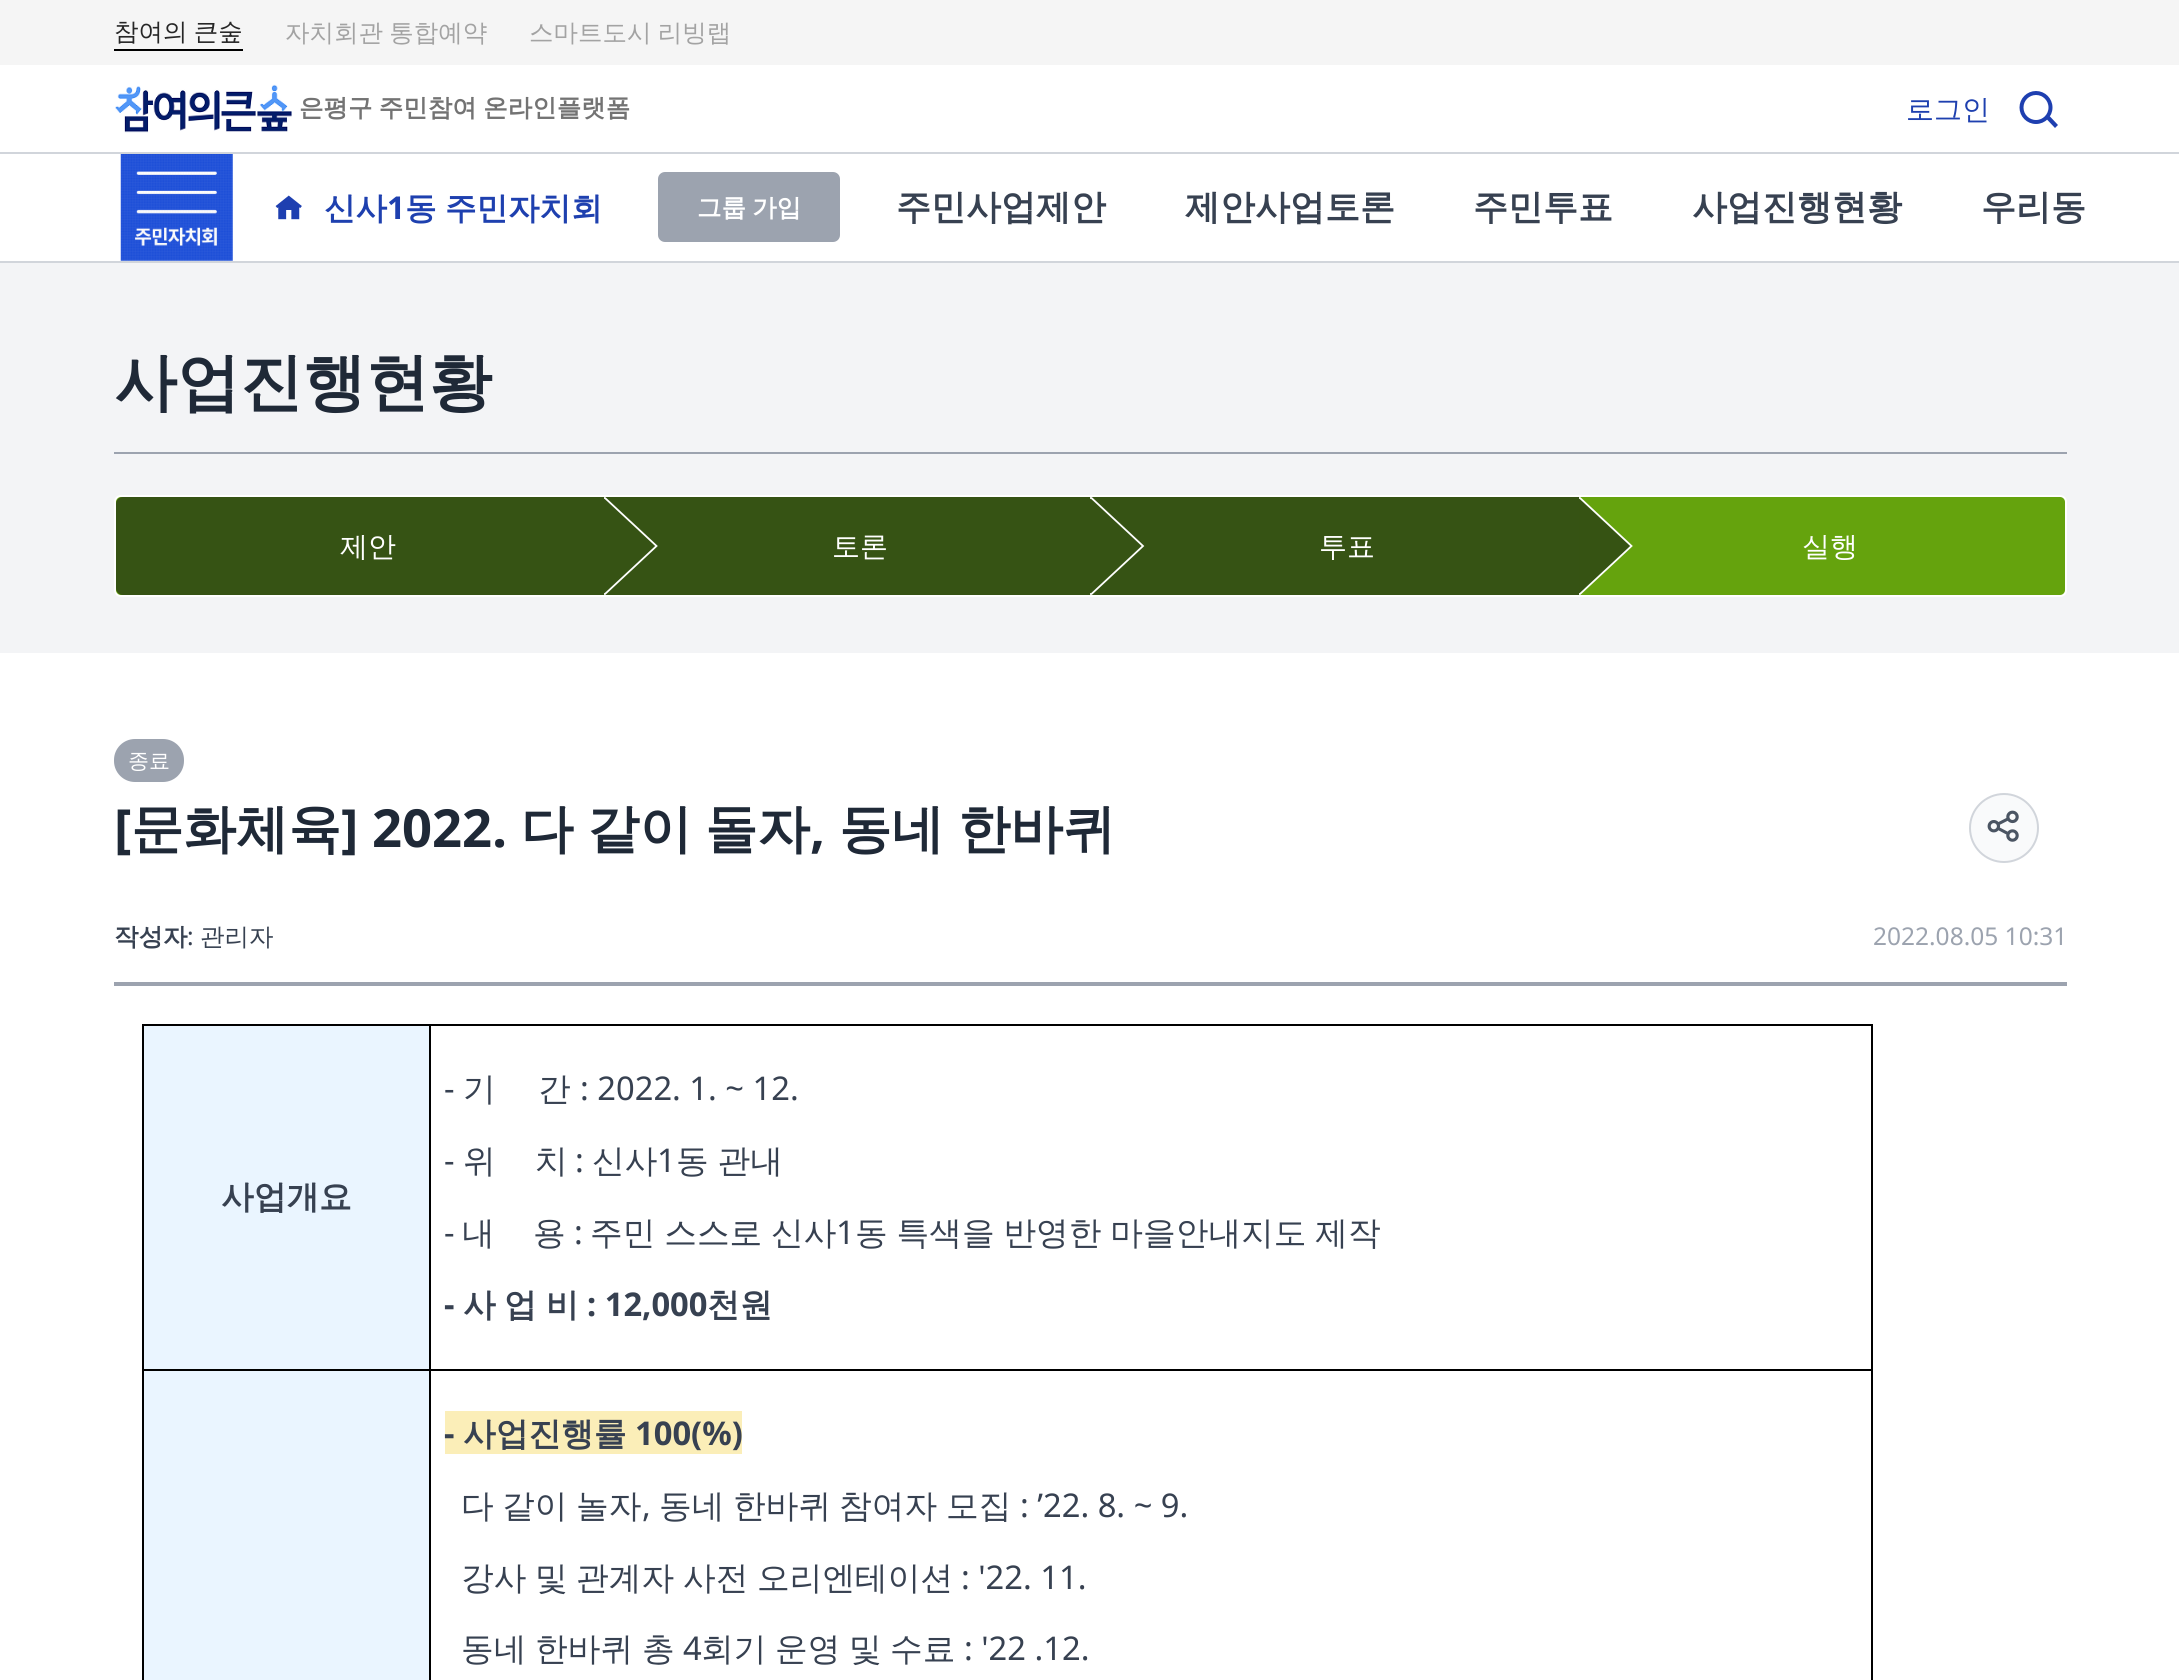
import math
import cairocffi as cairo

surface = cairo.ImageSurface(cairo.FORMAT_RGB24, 2179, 1680)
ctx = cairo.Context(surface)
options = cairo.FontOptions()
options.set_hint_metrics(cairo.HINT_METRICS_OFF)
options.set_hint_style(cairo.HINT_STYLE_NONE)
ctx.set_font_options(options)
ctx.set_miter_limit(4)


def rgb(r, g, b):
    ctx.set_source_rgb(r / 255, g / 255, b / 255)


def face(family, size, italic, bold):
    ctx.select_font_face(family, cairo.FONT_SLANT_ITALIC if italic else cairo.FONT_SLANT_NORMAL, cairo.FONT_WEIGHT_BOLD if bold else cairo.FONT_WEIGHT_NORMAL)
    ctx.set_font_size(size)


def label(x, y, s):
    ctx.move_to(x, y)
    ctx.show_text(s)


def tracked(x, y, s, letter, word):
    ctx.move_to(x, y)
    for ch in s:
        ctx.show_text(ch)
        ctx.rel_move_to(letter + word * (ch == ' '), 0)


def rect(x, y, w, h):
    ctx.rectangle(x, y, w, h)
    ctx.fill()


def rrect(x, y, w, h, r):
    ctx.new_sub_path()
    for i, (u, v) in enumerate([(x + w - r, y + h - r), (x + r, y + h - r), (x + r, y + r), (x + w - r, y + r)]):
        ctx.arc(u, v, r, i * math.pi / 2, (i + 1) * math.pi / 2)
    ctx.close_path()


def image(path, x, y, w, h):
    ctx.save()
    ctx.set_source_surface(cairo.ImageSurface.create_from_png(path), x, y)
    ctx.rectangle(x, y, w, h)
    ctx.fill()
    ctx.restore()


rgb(255, 255, 255)
ctx.paint()
rgb(209, 213, 219)
rect(0, 261, 2179, 2)
rgb(245, 245, 245)
rect(0, 0, 2179, 65)
rgb(0, 0, 0)
rect(114, 49, 129, 2)
face('WenQuanYi Zen Hei Medium', 24.5, 0, 0)
rgb(38, 38, 38)
tracked(114, 40, '참여의 큰숲', 0, -1)
rgb(163, 163, 163)
tracked(285, 41, '자치회관 통합예약', 0, -1)
tracked(529, 41, '스마트도시 리빙랩', 0, -1)
image('image0.png', 115, 84, 177, 49)
face('WenQuanYi Zen Hei', 24.5, 0, 1)
rgb(115, 115, 115)
tracked(299, 116, '은평구 주민참여 온라인플랫폼', 0, -1)
face('WenQuanYi Zen Hei Medium', 28, 0, 0)
rgb(30, 64, 175)
label(1906, 119, '로그인')
ctx.new_path()
ctx.arc(2036, 107.5, 14.5, 0, 2 * math.pi)
rgb(30, 63, 176)
ctx.set_line_width(4)
ctx.stroke()
ctx.set_fill_rule(cairo.FILL_RULE_EVEN_ODD)
ctx.new_path()
ctx.move_to(2046.5, 119)
ctx.line_to(2049.5, 116)
ctx.line_to(2058, 125)
ctx.line_to(2055, 128)
ctx.close_path()
ctx.fill()
rgb(209, 213, 219)
rect(0, 152, 2179, 2)
image('image1.png', 120, 154, 113, 107)
image('image2.png', 275, 195, 27, 25)
face('WenQuanYi Zen Hei', 31.5, 0, 1)
rgb(30, 64, 175)
label(324, 219, '신사')
face('Noto Sans', 31.5, 0, 1)
label(387, 219, '1')
face('WenQuanYi Zen Hei', 31.5, 0, 1)
tracked(405, 219, '동 주민자치회', 0, -1)
rgb(156, 163, 175)
rrect(658, 172, 182, 70, 7)
ctx.fill()
face('WenQuanYi Zen Hei', 24.5, 0, 1)
rgb(255, 255, 255)
tracked(697, 216, '그룹 가입', 0, -1)
face('WenQuanYi Zen Hei', 35, 0, 1)
rgb(55, 65, 81)
label(896, 219, '주민사업제안')
label(1185, 219, '제안사업토론')
label(1473, 219, '주민투표')
label(1692, 219, '사업진행현황')
label(1981, 219, '우리동')
rgb(243, 244, 246)
rect(0, 263, 2179, 390)
rgb(156, 163, 175)
rect(114, 452, 1953, 2)
face('WenQuanYi Zen Hei', 63, 0, 1)
rgb(31, 41, 55)
label(114, 404, '사업진행현황')
rgb(101, 163, 13)
rrect(115, 496, 1951, 100, 6)
ctx.fill_preserve()
rgb(255, 255, 255)
ctx.set_line_width(2)
ctx.stroke()
rgb(54, 83, 20)
ctx.new_path()
ctx.move_to(123, 497)
ctx.line_to(604, 497)
ctx.line_to(604, 595)
ctx.line_to(123, 595)
ctx.curve_to(119, 595, 116, 592, 116, 588)
ctx.line_to(116, 504)
ctx.curve_to(116, 500, 119, 497, 123, 497)
ctx.close_path()
ctx.fill()
face('WenQuanYi Zen Hei Medium', 28, 0, 0)
rgb(255, 255, 255)
label(340, 556, '제안')
rgb(54, 83, 20)
rect(604, 497, 975, 98)
ctx.save()
ctx.set_fill_rule(cairo.FILL_RULE_WINDING)
ctx.rectangle(604, 497, 54, 98)
ctx.clip()
ctx.new_path()
ctx.move_to(605, 498)
ctx.line_to(656.5, 546)
ctx.line_to(605, 594)
ctx.line_to(124, 594)
ctx.curve_to(122.5, 594, 121, 593.5, 120, 592.5)
ctx.curve_to(119, 591, 118, 589.5, 118, 588)
ctx.line_to(118, 504)
ctx.curve_to(118, 502.5, 119, 501, 120, 499.5)
ctx.curve_to(121, 498.5, 122.5, 498, 124, 498)
ctx.close_path()
rgb(255, 255, 255)
ctx.set_line_width(1.8)
ctx.stroke()
ctx.restore()
rgb(255, 255, 255)
label(832, 556, '토론')
ctx.save()
ctx.set_fill_rule(cairo.FILL_RULE_WINDING)
ctx.rectangle(1090, 497, 55, 98)
ctx.clip()
ctx.new_path()
ctx.move_to(1091.5, 498)
ctx.line_to(1143, 546)
ctx.line_to(1091.5, 594)
ctx.line_to(611, 594)
ctx.curve_to(609, 594, 607.5, 593.5, 606.5, 592.5)
ctx.curve_to(605.5, 591, 604.5, 589.5, 604.5, 588)
ctx.line_to(604.5, 504)
ctx.curve_to(604.5, 502.5, 605.5, 501, 606.5, 499.5)
ctx.curve_to(607.5, 498.5, 609, 498, 611, 498)
ctx.close_path()
ctx.set_line_width(1.8)
ctx.stroke()
ctx.restore()
label(1319, 556, '투표')
ctx.save()
ctx.set_fill_rule(cairo.FILL_RULE_WINDING)
ctx.rectangle(1579, 497, 54, 98)
ctx.clip()
rgb(54, 83, 19)
ctx.set_fill_rule(cairo.FILL_RULE_EVEN_ODD)
ctx.new_path()
ctx.move_to(1580, 498)
ctx.line_to(1631, 546)
ctx.line_to(1580, 594)
ctx.line_to(1099, 594)
ctx.curve_to(1097, 594, 1096, 593, 1095, 592)
ctx.curve_to(1094, 591, 1093, 590, 1093, 588)
ctx.line_to(1093, 504)
ctx.curve_to(1093, 502, 1094, 501, 1095, 500)
ctx.curve_to(1096, 499, 1097, 498, 1099, 498)
ctx.close_path()
ctx.fill()
ctx.new_path()
ctx.move_to(1580, 498)
ctx.line_to(1631.5, 546)
ctx.line_to(1580, 594)
ctx.line_to(1099, 594)
ctx.curve_to(1097.5, 594, 1096, 593.5, 1094.5, 592.5)
ctx.curve_to(1093.5, 591, 1093, 589.5, 1093, 588)
ctx.line_to(1093, 504)
ctx.curve_to(1093, 502.5, 1093.5, 501, 1094.5, 499.5)
ctx.curve_to(1096, 498.5, 1097.5, 498, 1099, 498)
ctx.close_path()
rgb(255, 255, 255)
ctx.set_line_width(1.8)
ctx.stroke()
ctx.restore()
label(1802, 556, '실행')
rgb(156, 163, 175)
rect(114, 982, 1953, 4)
rrect(114, 739, 70, 43, 21)
ctx.fill()
face('WenQuanYi Zen Hei Medium', 21, 0, 0)
rgb(255, 255, 255)
label(128, 768, '종료')
face('Noto Sans', 52.5, 0, 1)
rgb(31, 41, 55)
label(114, 847, '[')
face('WenQuanYi Zen Hei', 52.5, 0, 1)
label(131, 847, '문화체육')
face('Noto Sans', 52.5, 0, 1)
label(341, 847, '] 2022.')
face('WenQuanYi Zen Hei', 52.5, 0, 1)
label(521, 847, '다')
label(587, 847, '같이')
label(705, 847, '돌자')
face('Noto Sans', 52.5, 0, 1)
label(810, 847, ',')
face('WenQuanYi Zen Hei', 52.5, 0, 1)
label(839, 847, '동네')
label(958, 847, '한바퀴')
rgb(249, 250, 251)
ctx.new_path()
ctx.arc(2004, 828, 34, 0, 2 * math.pi)
ctx.fill_preserve()
rgb(209, 213, 219)
ctx.stroke()
image('image3.png', 1987, 810, 32, 32)
face('WenQuanYi Zen Hei', 24.5, 0, 1)
rgb(55, 65, 81)
label(114, 945, '작성자')
face('Noto Sans', 24.5, 0, 0)
label(187, 945, ':')
face('WenQuanYi Zen Hei Medium', 24.5, 0, 0)
label(200, 945, '관리자')
face('Noto Sans', 24.5, 0, 0)
rgb(156, 163, 175)
label(1873, 945, '2022.08.05 10:31')
rgb(234, 245, 255)
rect(144, 1026, 285, 343)
rgb(0, 0, 0)
rect(429, 1024, 1444, 2)
rect(429, 1369, 1444, 2)
rect(429, 1369, 2, 311)
rect(142, 1369, 289, 2)
rect(429, 1024, 2, 346)
rect(142, 1024, 289, 2)
rect(142, 1369, 2, 311)
rect(142, 1024, 2, 346)
face('WenQuanYi Zen Hei', 32.7, 0, 1)
rgb(55, 65, 81)
label(221, 1208, '사업개요')
rgb(0, 0, 0)
rect(1871, 1369, 2, 311)
rect(1871, 1024, 2, 346)
face('Noto Sans', 32.7, 0, 0)
rgb(55, 65, 81)
label(444, 1100, '-')
face('WenQuanYi Zen Hei Medium', 32.7, 0, 0)
label(463, 1100, '기')
label(538, 1100, '간')
face('Noto Sans', 32.7, 0, 0)
label(580, 1100, ': 2022. 1. ~ 12.')
label(444, 1172, '-')
face('WenQuanYi Zen Hei Medium', 32.7, 0, 0)
label(463, 1172, '위')
label(535, 1172, '치')
face('Noto Sans', 32.7, 0, 0)
label(575, 1172, ':')
face('WenQuanYi Zen Hei Medium', 32.7, 0, 0)
label(592, 1172, '신사')
face('Noto Sans', 32.7, 0, 0)
label(657, 1172, '1')
face('WenQuanYi Zen Hei Medium', 32.7, 0, 0)
tracked(676, 1172, '동 관내', 0, -1)
face('Noto Sans', 32.7, 0, 0)
label(444, 1244, '-')
face('WenQuanYi Zen Hei Medium', 32.7, 0, 0)
label(462, 1244, '내')
label(533, 1244, '용')
face('Noto Sans', 32.7, 0, 0)
label(574, 1244, ':')
face('WenQuanYi Zen Hei Medium', 32.7, 0, 0)
tracked(590, 1244, '주민 스스로 신사', 0, -1)
face('Noto Sans', 32.7, 0, 0)
label(836, 1244, '1')
face('WenQuanYi Zen Hei Medium', 32.7, 0, 0)
tracked(855, 1244, '동 특색을 반영한 마을안내지도 제작', 0, -1)
face('Noto Sans', 32.7, 0, 1)
label(444, 1316, '-')
face('WenQuanYi Zen Hei', 32.7, 0, 1)
label(463, 1316, '사')
label(504, 1316, '업')
label(546, 1316, '비')
face('Noto Sans', 32.7, 0, 1)
label(587, 1316, ': 12,000')
face('WenQuanYi Zen Hei', 32.7, 0, 1)
label(707, 1316, '천원')
rgb(234, 245, 255)
rect(144, 1371, 285, 309)
rgb(251, 238, 184)
rect(445, 1411, 297, 43)
face('Noto Sans', 32.7, 0, 1)
rgb(55, 65, 81)
label(444, 1445, '-')
face('WenQuanYi Zen Hei', 32.7, 0, 1)
label(463, 1445, '사업진행률')
face('Noto Sans', 32.7, 0, 1)
label(635, 1445, '100(%)')
face('WenQuanYi Zen Hei Medium', 32.7, 0, 0)
label(461, 1517, '다')
label(502, 1517, '같이')
label(576, 1517, '놀자')
face('Noto Sans', 32.7, 0, 0)
label(642, 1517, ',')
face('WenQuanYi Zen Hei Medium', 32.7, 0, 0)
label(659, 1517, '동네')
label(733, 1517, '한바퀴')
label(839, 1517, '참여자')
label(946, 1517, '모집')
face('Noto Sans', 32.7, 0, 0)
label(1020, 1517, ': ’22. 8. ~ 9.')
face('WenQuanYi Zen Hei Medium', 32.7, 0, 0)
label(461, 1589, '강사')
label(535, 1589, '및')
label(576, 1589, '관계자')
label(683, 1589, '사전')
label(757, 1589, '오리엔테이션')
face('Noto Sans', 32.7, 0, 0)
label(961, 1589, ': \'22. 11.')
face('WenQuanYi Zen Hei Medium', 32.7, 0, 0)
label(461, 1660, '동네')
label(535, 1660, '한바퀴')
label(642, 1660, '총')
face('Noto Sans', 32.7, 0, 0)
label(683, 1660, '4')
face('WenQuanYi Zen Hei Medium', 32.7, 0, 0)
label(701, 1660, '회기')
label(775, 1660, '운영')
label(849, 1660, '및')
label(890, 1660, '수료')
face('Noto Sans', 32.7, 0, 0)
label(964, 1660, ': \'22 .12.')
surface.write_to_png('render.png')
